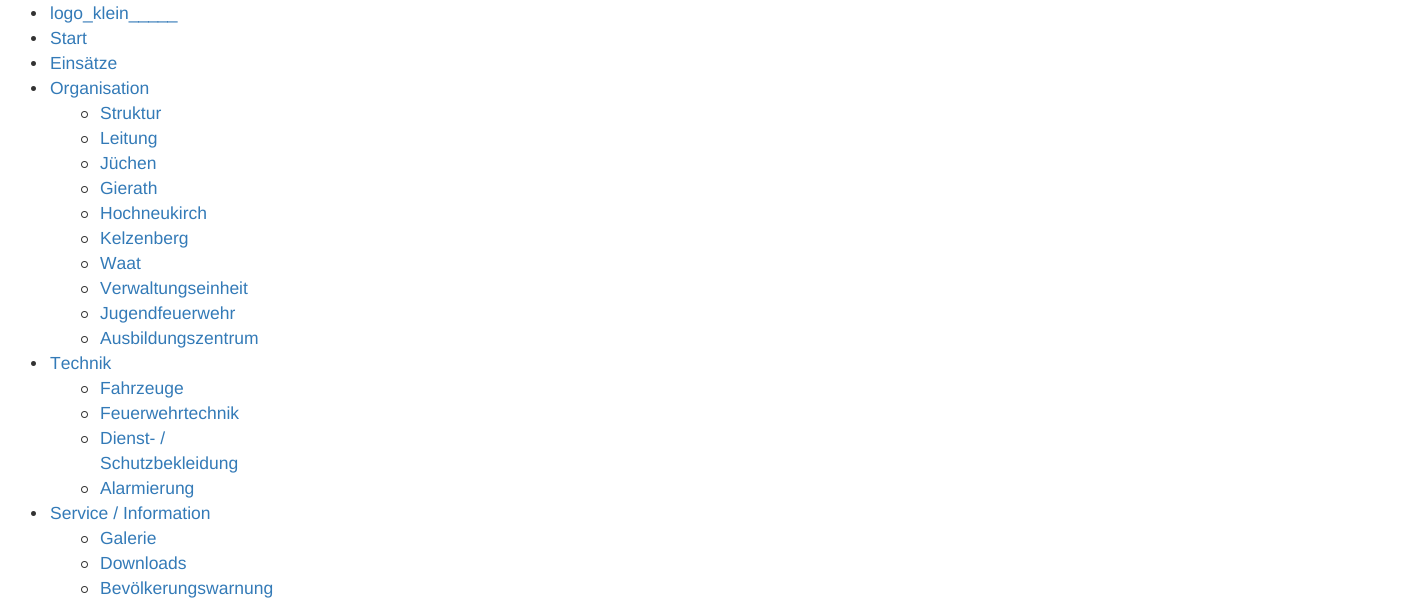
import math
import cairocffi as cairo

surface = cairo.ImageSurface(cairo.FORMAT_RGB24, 1414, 602)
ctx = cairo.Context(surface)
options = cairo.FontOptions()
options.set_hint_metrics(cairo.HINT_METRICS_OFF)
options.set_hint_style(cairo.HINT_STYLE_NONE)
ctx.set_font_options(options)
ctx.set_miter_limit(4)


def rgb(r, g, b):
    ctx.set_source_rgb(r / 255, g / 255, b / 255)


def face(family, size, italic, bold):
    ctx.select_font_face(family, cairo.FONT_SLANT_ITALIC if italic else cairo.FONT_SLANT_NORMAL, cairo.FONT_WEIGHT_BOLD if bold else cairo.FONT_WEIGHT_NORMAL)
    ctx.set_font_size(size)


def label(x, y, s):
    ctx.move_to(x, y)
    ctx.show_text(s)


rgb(255, 255, 255)
ctx.paint()
rgb(51, 51, 51)
ctx.arc(33.5, 13.5, 2.5, 0, 2 * math.pi)
ctx.fill()
face('Liberation Sans', 17.5, 0, 0)
rgb(51, 122, 183)
label(50, 19, 'logo_klein_____')
rgb(51, 51, 51)
ctx.new_path()
ctx.arc(33.5, 38.5, 2.5, 0, 2 * math.pi)
ctx.fill()
rgb(51, 122, 183)
label(50, 44, 'Start')
rgb(51, 51, 51)
ctx.new_path()
ctx.arc(33.5, 63.5, 2.5, 0, 2 * math.pi)
ctx.fill()
rgb(51, 122, 183)
label(50, 69, 'Einsätze')
rgb(51, 51, 51)
ctx.new_path()
ctx.arc(33.5, 88.5, 2.5, 0, 2 * math.pi)
ctx.fill()
rgb(51, 122, 183)
label(50, 94, 'Organisation')
ctx.new_path()
ctx.arc(84.5, 114.5, 3, 0, 2 * math.pi)
rgb(51, 51, 51)
ctx.set_line_width(1)
ctx.stroke()
rgb(51, 122, 183)
label(100, 119, 'Struktur')
ctx.new_path()
ctx.arc(84.5, 139.5, 3, 0, 2 * math.pi)
rgb(51, 51, 51)
ctx.stroke()
rgb(51, 122, 183)
label(100, 144, 'Leitung')
ctx.new_path()
ctx.arc(84.5, 164.5, 3, 0, 2 * math.pi)
rgb(51, 51, 51)
ctx.stroke()
rgb(51, 122, 183)
label(100, 169, 'Jüchen')
ctx.new_path()
ctx.arc(84.5, 189.5, 3, 0, 2 * math.pi)
rgb(51, 51, 51)
ctx.stroke()
rgb(51, 122, 183)
label(100, 194, 'Gierath')
ctx.new_path()
ctx.arc(84.5, 214.5, 3, 0, 2 * math.pi)
rgb(51, 51, 51)
ctx.stroke()
rgb(51, 122, 183)
label(100, 219, 'Hochneukirch')
ctx.new_path()
ctx.arc(84.5, 239.5, 3, 0, 2 * math.pi)
rgb(51, 51, 51)
ctx.stroke()
rgb(51, 122, 183)
label(100, 244, 'Kelzenberg')
ctx.new_path()
ctx.arc(84.5, 264.5, 3, 0, 2 * math.pi)
rgb(51, 51, 51)
ctx.stroke()
rgb(51, 122, 183)
label(100, 269, 'Waat')
ctx.new_path()
ctx.arc(84.5, 289.5, 3, 0, 2 * math.pi)
rgb(51, 51, 51)
ctx.stroke()
rgb(51, 122, 183)
label(100, 294, 'Verwaltungseinheit')
ctx.new_path()
ctx.arc(84.5, 314.5, 3, 0, 2 * math.pi)
rgb(51, 51, 51)
ctx.stroke()
rgb(51, 122, 183)
label(100, 319, 'Jugendfeuerwehr')
ctx.new_path()
ctx.arc(84.5, 339.5, 3, 0, 2 * math.pi)
rgb(51, 51, 51)
ctx.stroke()
rgb(51, 122, 183)
label(100, 344, 'Ausbildungszentrum')
rgb(51, 51, 51)
ctx.new_path()
ctx.arc(33.5, 363.5, 2.5, 0, 2 * math.pi)
ctx.fill()
rgb(51, 122, 183)
label(50, 369, 'Technik')
ctx.new_path()
ctx.arc(84.5, 389.5, 3, 0, 2 * math.pi)
rgb(51, 51, 51)
ctx.stroke()
rgb(51, 122, 183)
label(100, 394, 'Fahrzeuge')
ctx.new_path()
ctx.arc(84.5, 414.5, 3, 0, 2 * math.pi)
rgb(51, 51, 51)
ctx.stroke()
rgb(51, 122, 183)
label(100, 419, 'Feuerwehrtechnik')
ctx.new_path()
ctx.arc(84.5, 439.5, 3, 0, 2 * math.pi)
rgb(51, 51, 51)
ctx.stroke()
rgb(51, 122, 183)
label(100, 444, 'Dienst- /')
label(100, 469, 'Schutzbekleidung')
ctx.new_path()
ctx.arc(84.5, 489.5, 3, 0, 2 * math.pi)
rgb(51, 51, 51)
ctx.stroke()
rgb(51, 122, 183)
label(100, 494, 'Alarmierung')
rgb(51, 51, 51)
ctx.new_path()
ctx.arc(33.5, 513.5, 2.5, 0, 2 * math.pi)
ctx.fill()
rgb(51, 122, 183)
label(50, 519, 'Service / Information')
ctx.new_path()
ctx.arc(84.5, 539.5, 3, 0, 2 * math.pi)
rgb(51, 51, 51)
ctx.stroke()
rgb(51, 122, 183)
label(100, 544, 'Galerie')
ctx.new_path()
ctx.arc(84.5, 564.5, 3, 0, 2 * math.pi)
rgb(51, 51, 51)
ctx.stroke()
rgb(51, 122, 183)
label(100, 569, 'Downloads')
ctx.new_path()
ctx.arc(84.5, 589.5, 3, 0, 2 * math.pi)
rgb(51, 51, 51)
ctx.stroke()
rgb(51, 122, 183)
label(100, 594, 'Bevölkerungswarnung')
surface.write_to_png('render.png')
